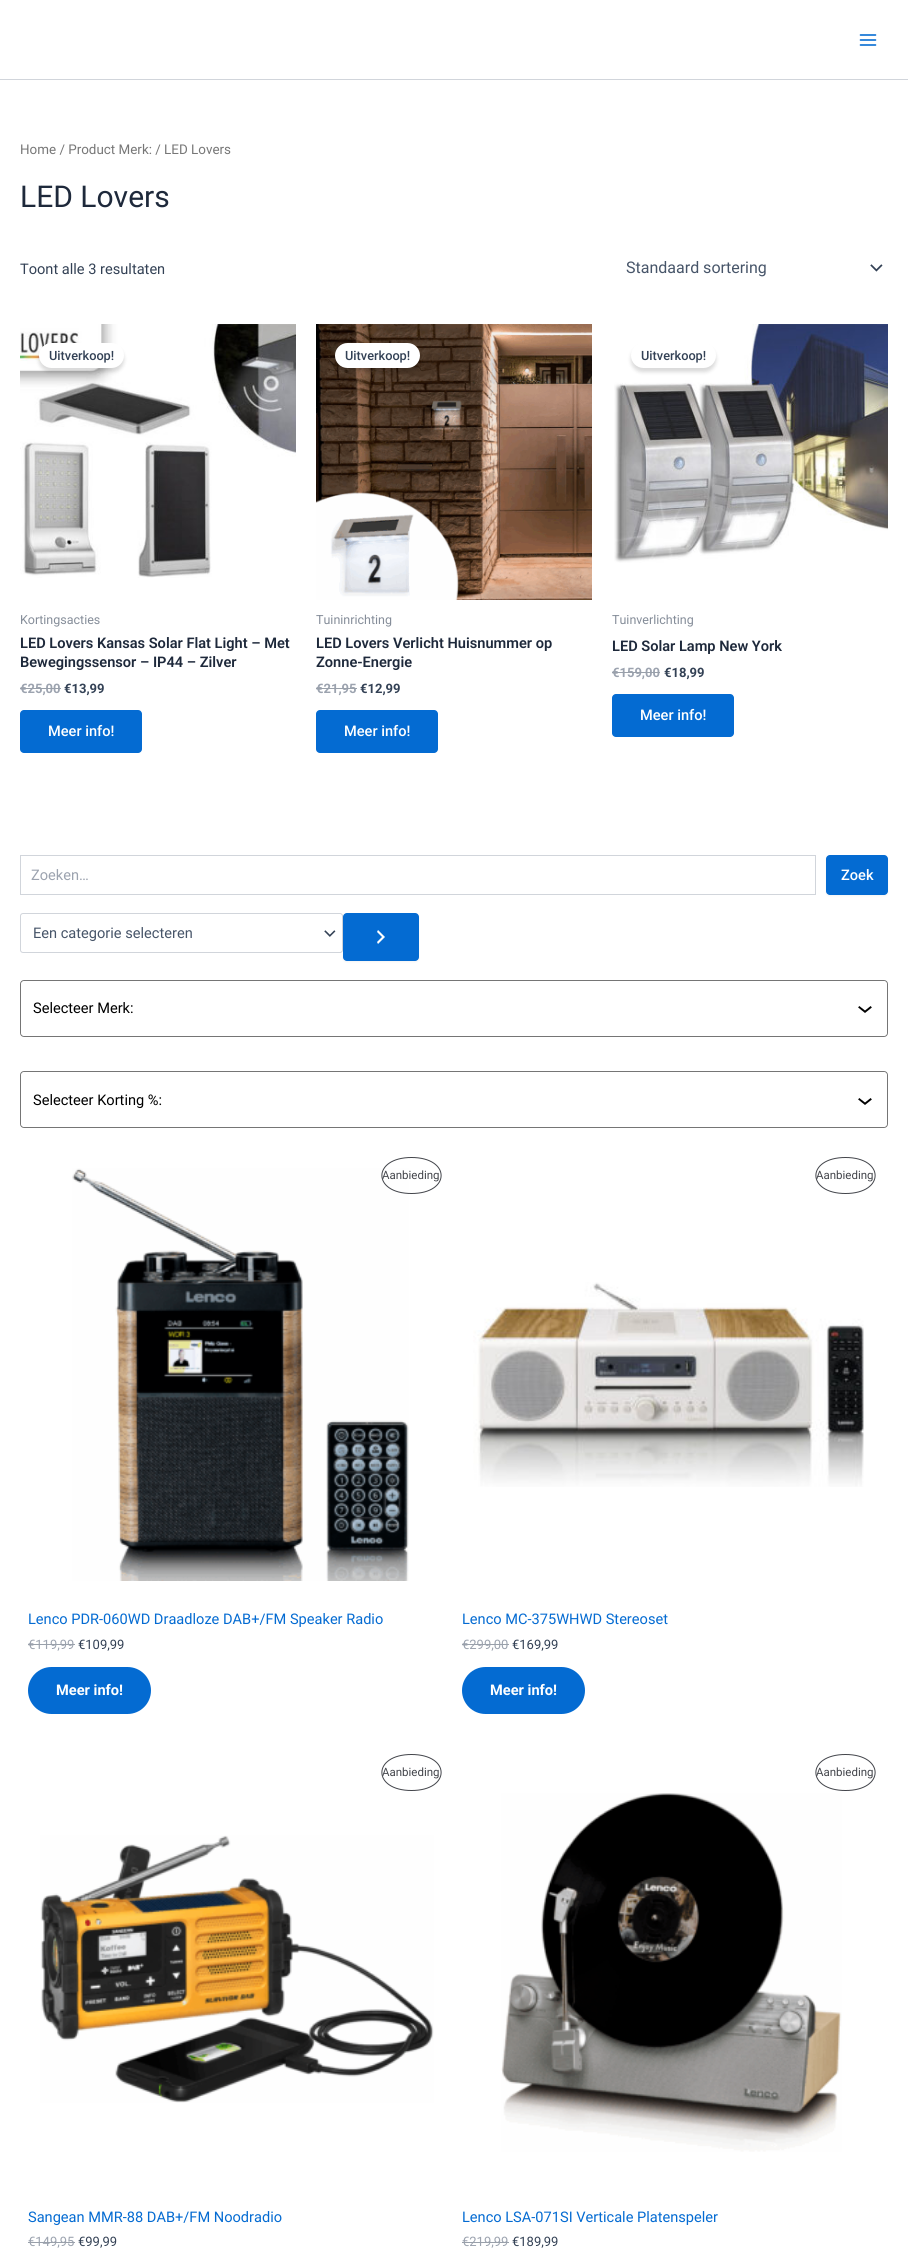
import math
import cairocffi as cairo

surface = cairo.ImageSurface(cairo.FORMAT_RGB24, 908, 2260)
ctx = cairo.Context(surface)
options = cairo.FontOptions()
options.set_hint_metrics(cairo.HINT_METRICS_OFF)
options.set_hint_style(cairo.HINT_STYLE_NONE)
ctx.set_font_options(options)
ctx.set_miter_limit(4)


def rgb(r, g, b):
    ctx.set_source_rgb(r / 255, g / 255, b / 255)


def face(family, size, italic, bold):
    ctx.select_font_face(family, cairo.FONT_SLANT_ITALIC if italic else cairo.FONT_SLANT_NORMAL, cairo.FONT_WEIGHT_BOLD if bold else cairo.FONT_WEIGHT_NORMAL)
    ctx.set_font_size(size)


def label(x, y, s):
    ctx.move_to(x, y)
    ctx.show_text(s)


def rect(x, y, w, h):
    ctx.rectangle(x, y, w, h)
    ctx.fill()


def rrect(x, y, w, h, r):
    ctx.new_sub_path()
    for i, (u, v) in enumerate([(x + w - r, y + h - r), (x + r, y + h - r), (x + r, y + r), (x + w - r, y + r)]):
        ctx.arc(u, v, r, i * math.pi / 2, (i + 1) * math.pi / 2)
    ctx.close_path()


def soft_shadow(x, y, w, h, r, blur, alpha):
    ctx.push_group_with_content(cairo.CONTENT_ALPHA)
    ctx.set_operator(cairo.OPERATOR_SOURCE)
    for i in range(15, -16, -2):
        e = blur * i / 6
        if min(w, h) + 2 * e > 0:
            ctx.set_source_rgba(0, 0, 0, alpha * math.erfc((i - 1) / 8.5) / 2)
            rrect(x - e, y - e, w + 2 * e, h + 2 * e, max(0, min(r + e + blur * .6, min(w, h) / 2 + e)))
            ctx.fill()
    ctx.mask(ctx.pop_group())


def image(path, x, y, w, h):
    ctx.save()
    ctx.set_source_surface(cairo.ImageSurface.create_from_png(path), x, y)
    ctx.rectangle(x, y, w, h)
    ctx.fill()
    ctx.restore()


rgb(255, 255, 255)
ctx.paint()
rgb(209, 213, 219)
rect(0, 79, 908, 1)
image('image0.png', 859, 34, 18, 12)
face('Roboto', 13.4, 0, 0)
rgb(119, 119, 119)
label(20, 154, 'Home / Product Merk: / LED Lovers')
face('Roboto', 30, 0, 0)
rgb(30, 41, 59)
label(20, 207, 'LED Lovers')
face('Roboto', 14.6, 0, 0)
rgb(51, 65, 85)
label(20, 274, 'Toont alle 3 resultaten')
image('image1.png', 870, 264, 13, 8)
face('Roboto', 16, 0, 0)
rgb(71, 85, 105)
label(626, 273, 'Standaard sortering')
image('image2.png', 20, 324, 276, 254)
rgb(0, 0, 0)
soft_shadow(39, 347, 85, 25, 12.5, 2, 0.15)
rgb(255, 255, 255)
rrect(39, 343, 85, 25, 12.5)
ctx.fill()
face('Roboto Medium', 12.75, 0, 0)
rgb(51, 65, 85)
label(49, 360, 'Uitverkoop!')
face('Roboto', 12.5, 0, 0)
rgb(133, 141, 153)
label(20, 624, 'Kortingsacties')
face('Roboto SemiBold', 14.6, 0, 0)
rgb(30, 41, 59)
label(20, 648, 'LED Lovers Kansas Solar Flat Light – Met')
label(20, 667, 'Bewegingssensor – IP44 – Zilver')
face('Roboto', 13, 0, 1)
rgb(156, 163, 175)
label(20, 693, '€25,00')
rgb(153, 160, 170)
rect(20, 688, 41, 1)
rgb(51, 65, 85)
label(64, 693, '€13,99')
rgb(4, 107, 210)
rrect(20, 710, 122, 43, 4)
ctx.fill()
face('Roboto Medium', 14.6, 0, 0)
rgb(255, 255, 255)
label(48, 736, 'Meer info!')
image('image3.png', 316, 324, 276, 276)
rgb(0, 0, 0)
soft_shadow(335, 347, 85, 25, 12.5, 2, 0.15)
rgb(255, 255, 255)
rrect(335, 343, 85, 25, 12.5)
ctx.fill()
face('Roboto Medium', 12.75, 0, 0)
rgb(51, 65, 85)
label(345, 360, 'Uitverkoop!')
face('Roboto', 12.5, 0, 0)
rgb(133, 141, 153)
label(316, 624, 'Tuininrichting')
face('Roboto SemiBold', 14.6, 0, 0)
rgb(30, 41, 59)
label(316, 648, 'LED Lovers Verlicht Huisnummer op')
label(316, 667, 'Zonne-Energie')
face('Roboto', 13, 0, 1)
rgb(156, 163, 175)
label(316, 693, '€21,95')
rgb(153, 160, 170)
rect(316, 688, 41, 1)
rgb(51, 65, 85)
label(360, 693, '€12,99')
rgb(4, 107, 210)
rrect(316, 710, 122, 43, 4)
ctx.fill()
face('Roboto Medium', 14.6, 0, 0)
rgb(255, 255, 255)
label(344, 736, 'Meer info!')
image('image4.png', 614, 324, 274, 239)
rgb(0, 0, 0)
soft_shadow(631, 347, 85, 25, 12.5, 2, 0.15)
rgb(255, 255, 255)
rrect(631, 343, 85, 25, 12.5)
ctx.fill()
face('Roboto Medium', 12.75, 0, 0)
rgb(51, 65, 85)
label(641, 360, 'Uitverkoop!')
face('Roboto', 12.5, 0, 0)
rgb(133, 141, 153)
label(612, 624, 'Tuinverlichting')
face('Roboto SemiBold', 14.6, 0, 0)
rgb(30, 41, 59)
label(612, 651, 'LED Solar Lamp New York')
face('Roboto', 13, 0, 1)
rgb(156, 163, 175)
label(612, 677, '€159,00')
rgb(153, 160, 170)
rect(612, 672, 48, 1)
rgb(51, 65, 85)
label(664, 677, '€18,99')
rgb(4, 107, 210)
rrect(612, 694, 122, 43, 4)
ctx.fill()
face('Roboto Medium', 14.6, 0, 0)
rgb(255, 255, 255)
label(640, 720, 'Meer info!')
ctx.rectangle(20.5, 855.5, 795, 39)
rgb(209, 213, 219)
ctx.set_line_width(1)
ctx.stroke()
face('Roboto', 14.6, 0, 0)
rgb(156, 163, 175)
label(31, 880, 'Zoeken…')
rgb(0, 0, 0)
soft_shadow(826, 856, 62, 40, 4, 1, 0.05)
rgb(4, 107, 210)
rrect(826, 855, 62, 40, 4)
ctx.fill()
face('Roboto Medium', 14.6, 0, 0)
rgb(255, 255, 255)
label(841, 880, 'Zoek')
image('image5.png', 324, 930, 12, 7)
rrect(20.5, 913.5, 322, 39, 2.5)
rgb(209, 213, 219)
ctx.stroke()
face('Roboto', 14.6, 0, 0)
rgb(71, 85, 105)
label(33, 938, 'Een categorie selecteren')
rgb(0, 0, 0)
soft_shadow(343, 914, 76, 48, 4, 1, 0.05)
rgb(4, 107, 210)
rrect(343, 913, 76, 48, 4)
ctx.fill()
image('image6.png', 377, 930, 8, 14)
rrect(20.5, 980.5, 867, 56, 3.5)
rgb(117, 117, 117)
ctx.stroke()
rgb(255, 255, 255)
rrect(21, 981, 866, 55, 4)
ctx.fill()
rgb(0, 0, 0)
label(33, 1013, 'Selecteer Merk:')
image('image7.png', 858, 1006, 14, 7)
rrect(20.5, 1071.5, 867, 56, 3.5)
rgb(117, 117, 117)
ctx.stroke()
rgb(255, 255, 255)
rrect(21, 1072, 866, 55, 4)
ctx.fill()
rgb(0, 0, 0)
label(33, 1105, 'Selecteer Korting %:')
image('image7.png', 858, 1098, 14, 7)
image('image8.png', 72, 1168, 337, 413)
ctx.new_path()
ctx.move_to(411.5, 1157.5)
ctx.curve_to(451, 1157.5, 451, 1193.5, 411.5, 1193.5)
ctx.curve_to(372, 1193.5, 372, 1157.5, 411.5, 1157.5)
ctx.close_path()
rgb(67, 69, 75)
ctx.stroke()
face('Roboto', 11.5, 0, 0)
label(382, 1179, 'Aanbieding')
face('Roboto', 14.6, 0, 0)
rgb(4, 107, 210)
label(28, 1624, 'Lenco PDR-060WD Draadloze DAB+/FM Speaker Radio')
face('Roboto', 13, 0, 0)
rgb(156, 163, 175)
label(28, 1649, '€119,99')
rgb(153, 160, 170)
rect(28, 1644, 47, 1)
rgb(51, 65, 85)
label(78, 1649, '€109,99')
rgb(4, 107, 210)
rrect(28, 1667, 123, 47, 23.5)
ctx.fill()
face('Roboto', 14.6, 0, 1)
rgb(255, 255, 255)
label(56, 1695, 'Meer info!')
ctx.new_path()
ctx.move_to(845.5, 1157.5)
ctx.curve_to(885, 1157.5, 885, 1193.5, 845.5, 1193.5)
ctx.curve_to(806, 1193.5, 806, 1157.5, 845.5, 1157.5)
ctx.close_path()
rgb(67, 69, 75)
ctx.stroke()
face('Roboto', 11.5, 0, 0)
label(816, 1179, 'Aanbieding')
image('image9.png', 473, 1282, 391, 205)
face('Roboto', 14.6, 0, 0)
rgb(4, 107, 210)
label(462, 1624, 'Lenco MC-375WHWD Stereoset')
face('Roboto', 13, 0, 0)
rgb(156, 163, 175)
label(462, 1649, '€299,00')
rgb(153, 160, 170)
rect(462, 1644, 47, 1)
rgb(51, 65, 85)
label(512, 1649, '€169,99')
rgb(4, 107, 210)
rrect(462, 1667, 123, 47, 23.5)
ctx.fill()
face('Roboto', 14.6, 0, 1)
rgb(255, 255, 255)
label(490, 1695, 'Meer info!')
ctx.new_path()
ctx.move_to(411.5, 1754.5)
ctx.curve_to(451, 1754.5, 451, 1790.5, 411.5, 1790.5)
ctx.curve_to(372, 1790.5, 372, 1754.5, 411.5, 1754.5)
ctx.close_path()
rgb(67, 69, 75)
ctx.stroke()
face('Roboto', 11.5, 0, 0)
label(382, 1776, 'Aanbieding')
image('image10.png', 40, 1835, 394, 268)
face('Roboto', 14.6, 0, 0)
rgb(4, 107, 210)
label(28, 2222, 'Sangean MMR-88 DAB+/FM Noodradio')
face('Roboto', 13, 0, 0)
rgb(156, 163, 175)
label(28, 2246, '€149,95')
rgb(153, 160, 170)
rect(28, 2242, 47, 1)
rgb(51, 65, 85)
label(78, 2246, '€99,99')
ctx.new_path()
ctx.move_to(845.5, 1754.5)
ctx.curve_to(885, 1754.5, 885, 1790.5, 845.5, 1790.5)
ctx.curve_to(806, 1790.5, 806, 1754.5, 845.5, 1754.5)
ctx.close_path()
rgb(67, 69, 75)
ctx.stroke()
face('Roboto', 11.5, 0, 0)
label(816, 1776, 'Aanbieding')
image('image11.png', 501, 1793, 341, 359)
face('Roboto', 14.6, 0, 0)
rgb(4, 107, 210)
label(462, 2222, 'Lenco LSA-071SI Verticale Platenspeler')
face('Roboto', 13, 0, 0)
rgb(156, 163, 175)
label(462, 2246, '€219,99')
rgb(153, 160, 170)
rect(462, 2242, 47, 1)
rgb(51, 65, 85)
label(512, 2246, '€189,99')
surface.write_to_png('render.png')
